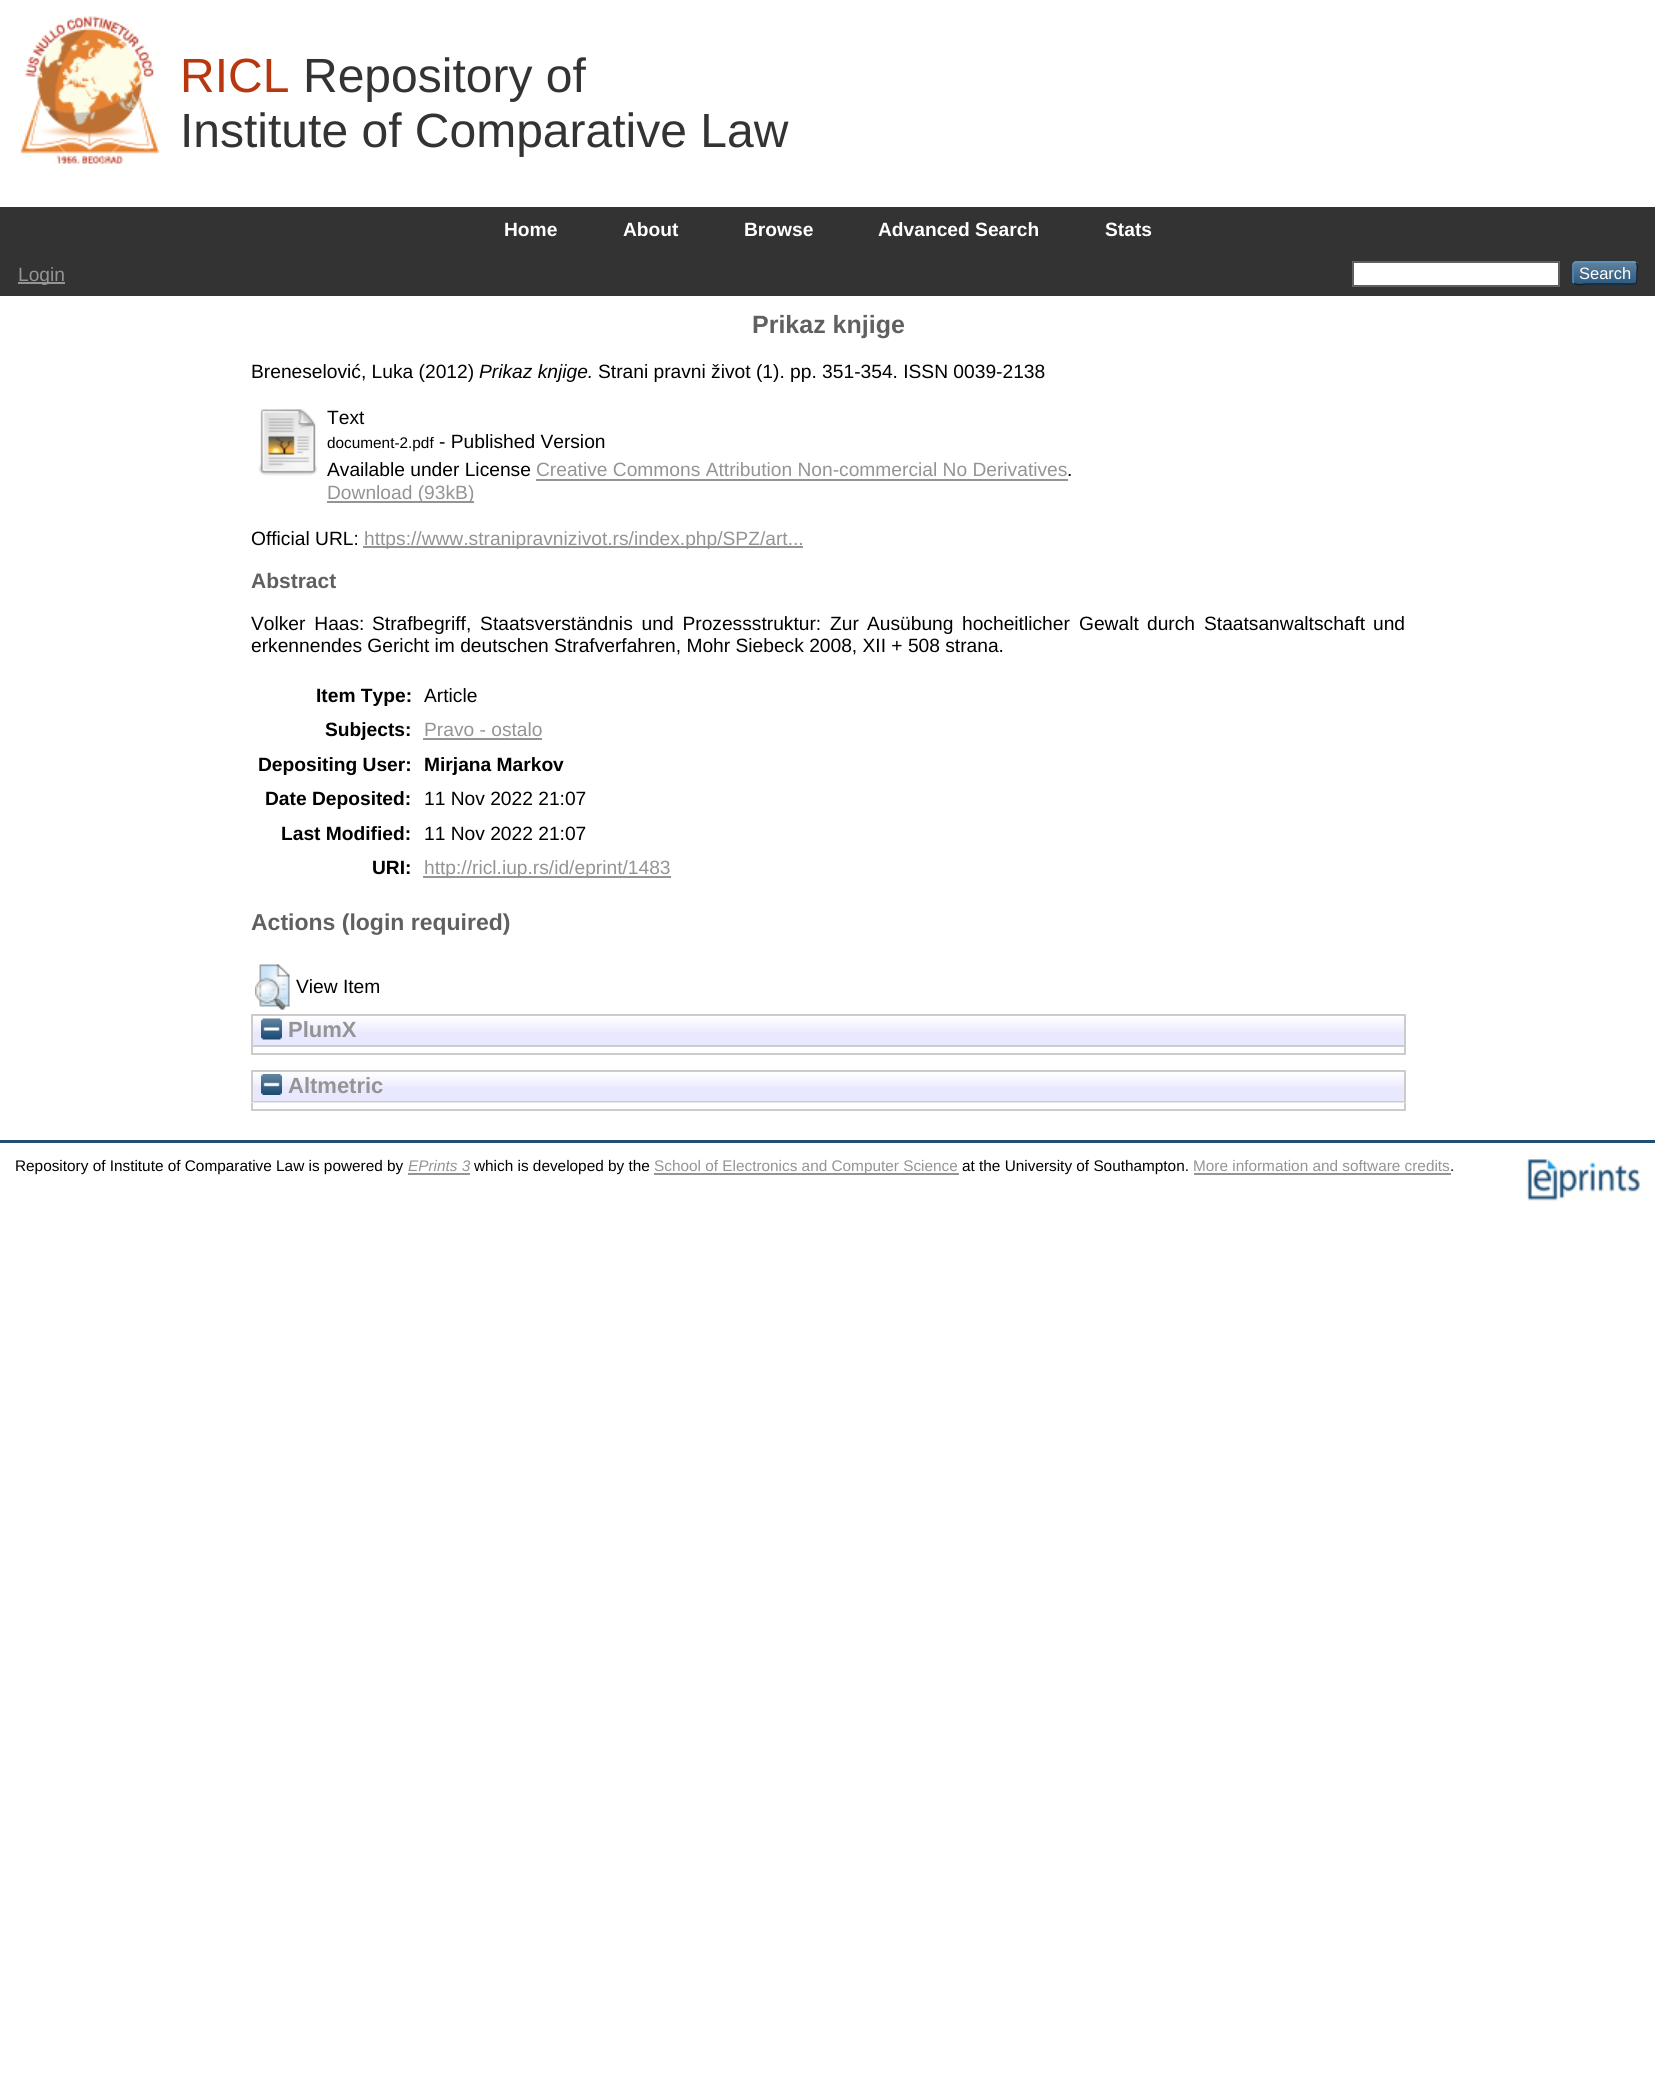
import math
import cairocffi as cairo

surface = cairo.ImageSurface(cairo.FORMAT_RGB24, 1655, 2074)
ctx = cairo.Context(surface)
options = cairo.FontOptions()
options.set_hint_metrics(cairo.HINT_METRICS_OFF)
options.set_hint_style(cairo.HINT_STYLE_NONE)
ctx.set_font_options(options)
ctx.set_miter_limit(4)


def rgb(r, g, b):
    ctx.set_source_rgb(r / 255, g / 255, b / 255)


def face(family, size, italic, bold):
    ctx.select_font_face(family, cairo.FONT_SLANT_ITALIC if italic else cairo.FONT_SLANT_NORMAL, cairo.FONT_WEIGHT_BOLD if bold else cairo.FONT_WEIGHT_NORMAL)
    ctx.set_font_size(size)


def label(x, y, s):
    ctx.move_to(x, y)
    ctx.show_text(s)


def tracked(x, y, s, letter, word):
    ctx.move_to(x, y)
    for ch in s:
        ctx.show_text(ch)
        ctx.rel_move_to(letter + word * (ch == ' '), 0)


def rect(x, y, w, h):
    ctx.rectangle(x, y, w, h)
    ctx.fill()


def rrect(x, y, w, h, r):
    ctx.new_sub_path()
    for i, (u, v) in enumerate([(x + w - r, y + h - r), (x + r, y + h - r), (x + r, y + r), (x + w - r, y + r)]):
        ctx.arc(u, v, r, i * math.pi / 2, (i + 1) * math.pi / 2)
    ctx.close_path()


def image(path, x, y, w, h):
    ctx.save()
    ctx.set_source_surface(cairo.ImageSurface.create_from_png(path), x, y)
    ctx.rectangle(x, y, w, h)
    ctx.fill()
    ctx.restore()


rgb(255, 255, 255)
ctx.paint()
image('image0.png', 15, 15, 150, 150)
face('Liberation Sans', 48, 0, 0)
rgb(185, 55, 15)
label(180, 92, 'RICL')
rgb(51, 51, 51)
label(303, 92, 'Repository of')
label(180, 147, 'Institute of Comparative Law')
rect(0, 207, 1655, 89)
face('Liberation Sans', 19.2, 0, 1)
rgb(255, 255, 255)
label(504, 236, 'Home')
label(623, 236, 'About')
label(744, 236, 'Browse')
label(878, 236, 'Advanced Search')
label(1105, 236, 'Stats')
rgb(148, 148, 148)
rect(18, 282, 47, 2)
face('Liberation Sans', 19.2, 0, 0)
label(18, 281, 'Login')
rgb(255, 255, 255)
ctx.rectangle(1353, 262, 206, 24)
ctx.fill_preserve()
rgb(96, 96, 96)
ctx.stroke()
rgb(31, 79, 118)
rrect(1572, 261, 66, 24, 5)
ctx.fill()
image('image1.png', 1572, 261, 66, 24)
ctx.new_path()
ctx.move_to(1574, 263)
ctx.line_to(1576, 262)
ctx.line_to(1634, 262)
ctx.line_to(1636, 263)
rgb(91, 151, 199)
ctx.set_line_width(1.5)
ctx.stroke()
ctx.new_path()
ctx.move_to(1636, 263)
ctx.curve_to(1638.5, 265, 1637, 270, 1637, 273)
ctx.curve_to(1637, 286, 1638, 284, 1624, 284)
ctx.line_to(1586, 284)
ctx.curve_to(1585.5, 284, 1576.5, 286, 1574, 283)
rgb(13, 33, 49)
ctx.stroke()
ctx.new_path()
ctx.move_to(1574, 283)
ctx.curve_to(1573, 282.5, 1573, 281.5, 1573, 280.5)
ctx.line_to(1573, 265.5)
ctx.curve_to(1573, 264.5, 1573, 263.5, 1574, 263)
rgb(82, 135, 179)
ctx.stroke()
face('Liberation Sans', 16.5, 0, 0)
rgb(255, 255, 255)
label(1579, 279, 'Search')
face('Liberation Sans', 25, 0, 1)
rgb(96, 96, 96)
label(752, 333, 'Prikaz knjige')
face('Liberation Sans', 19.2, 0, 0)
rgb(0, 0, 0)
label(251, 378, 'Breneselović, Luka (2012)')
face('Liberation Sans', 19.2, 1, 0)
label(479, 378, 'Prikaz knjige.')
face('Liberation Sans', 19.2, 0, 0)
label(598, 378, 'Strani pravni život (1). pp. 351-354. ISSN 0039-2138')
image('image2.png', 258, 409, 60, 67)
label(327, 424, 'Text')
face('Liberation Sans', 15.35, 0, 0)
label(327, 448, 'document-2.pdf')
face('Liberation Sans', 19.2, 0, 0)
label(439, 448, '- Published Version')
label(327, 476, 'Available under License')
rgb(148, 148, 148)
label(536, 476, 'Creative Commons Attribution Non-commercial No Derivatives')
rgb(0, 0, 0)
label(1067, 476, '.')
rgb(148, 148, 148)
rect(536, 479, 532, 2)
rect(327, 501, 147, 2)
label(327, 499, 'Download (93kB)')
rgb(0, 0, 0)
label(251, 545, 'Official URL:')
rgb(148, 148, 148)
rect(363, 546, 440, 2)
label(364, 545, 'https://www.stranipravnizivot.rs/index.php/SPZ/art...')
face('Liberation Sans', 21, 0, 1)
rgb(96, 96, 96)
label(251, 588, 'Abstract')
face('Liberation Sans', 19.2, 0, 0)
rgb(0, 0, 0)
tracked(251, 630, 'Volker Haas:', 0, 3.5)
tracked(372, 630, 'Strafbegriff, Staatsverständnis und Prozessstruktur: Zur', 0, 3.5)
label(867, 630, 'Ausübung')
label(962, 630, 'hocheitlicher')
label(1079, 630, 'Gewalt')
label(1147, 630, 'durch')
label(1204, 630, 'Staatsanwaltschaft')
label(1373, 630, 'und')
label(251, 652, 'erkennendes Gericht im deutschen Strafverfahren, Mohr Siebeck 2008, XII + 508 strana.')
face('Liberation Sans', 19.2, 0, 1)
label(316, 702, 'Item Type:')
face('Liberation Sans', 19.2, 0, 0)
label(424, 702, 'Article')
face('Liberation Sans', 19.2, 0, 1)
label(325, 736, 'Subjects:')
face('Liberation Sans', 19.2, 0, 0)
rgb(148, 148, 148)
label(424, 736, 'Pravo - ostalo')
rect(423, 738, 119, 2)
face('Liberation Sans', 19.2, 0, 1)
rgb(0, 0, 0)
label(258, 771, 'Depositing User:')
label(424, 771, 'Mirjana Markov')
label(265, 805, 'Date Deposited:')
face('Liberation Sans', 19.2, 0, 0)
label(424, 805, '11 Nov 2022 21:07')
face('Liberation Sans', 19.2, 0, 1)
label(281, 840, 'Last Modified:')
face('Liberation Sans', 19.2, 0, 0)
label(424, 840, '11 Nov 2022 21:07')
face('Liberation Sans', 19.2, 0, 1)
label(372, 874, 'URI:')
rgb(148, 148, 148)
rect(423, 876, 248, 2)
face('Liberation Sans', 19.2, 0, 0)
label(424, 874, 'http://ricl.iup.rs/id/eprint/1483')
face('Liberation Sans', 23, 0, 1)
rgb(96, 96, 96)
label(251, 930, 'Actions (login required)')
image('image3.png', 255, 964, 35, 46)
face('Liberation Sans', 19.2, 0, 0)
rgb(0, 0, 0)
label(296, 993, 'View Item')
rgb(232, 232, 255)
rect(253, 1016, 1151, 29)
image('image4.png', 253, 1016, 1151, 16)
ctx.rectangle(252, 1015, 1153, 31)
rgb(204, 204, 204)
ctx.set_line_width(2)
ctx.stroke()
image('image5.png', 261, 1018, 21, 22)
face('Liberation Sans', 22, 0, 1)
rgb(148, 148, 148)
label(288, 1037, 'PlumX')
image('image6.png', 253, 1047, 1151, 6)
rgb(204, 204, 204)
rect(1404, 1047, 2, 8)
rect(251, 1053, 1155, 2)
rect(251, 1047, 2, 8)
rgb(232, 232, 255)
rect(253, 1072, 1151, 29)
image('image7.png', 253, 1072, 1151, 15)
ctx.rectangle(252, 1071, 1153, 31)
rgb(204, 204, 204)
ctx.stroke()
image('image8.png', 261, 1074, 21, 21)
rgb(148, 148, 148)
label(288, 1093, 'Altmetric')
image('image9.png', 251, 1102, 1155, 7)
rgb(204, 204, 204)
rect(1404, 1103, 2, 7)
rect(251, 1109, 1155, 2)
rect(251, 1103, 2, 7)
rgb(32, 79, 118)
rect(0, 1140, 1655, 3)
face('Liberation Sans', 15.35, 0, 0)
rgb(0, 0, 0)
label(15, 1171, 'Repository of Institute of Comparative Law is powered by')
face('Liberation Sans', 15.35, 1, 0)
rgb(148, 148, 148)
label(408, 1171, 'EPrints 3')
rect(408, 1173, 62, 2)
face('Liberation Sans', 15.35, 0, 0)
rgb(0, 0, 0)
label(474, 1171, 'which is developed by the')
rgb(148, 148, 148)
rect(654, 1173, 305, 2)
label(654, 1171, 'School of Electronics and Computer Science')
rgb(0, 0, 0)
label(962, 1171, 'at the University of Southampton.')
rgb(148, 148, 148)
label(1193, 1171, 'More information and software credits')
rect(1194, 1173, 257, 2)
rgb(0, 0, 0)
label(1450, 1171, '.')
image('image10.png', 1526, 1159, 114, 43)
surface.write_to_png('render.png')
